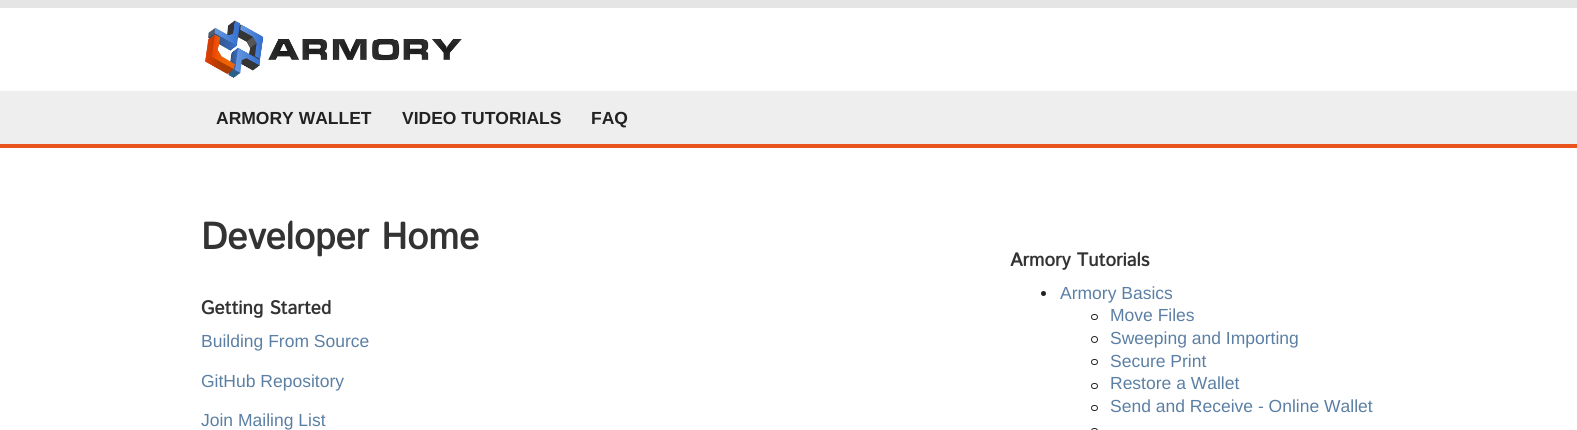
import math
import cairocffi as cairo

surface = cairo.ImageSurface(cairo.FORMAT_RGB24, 1577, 430)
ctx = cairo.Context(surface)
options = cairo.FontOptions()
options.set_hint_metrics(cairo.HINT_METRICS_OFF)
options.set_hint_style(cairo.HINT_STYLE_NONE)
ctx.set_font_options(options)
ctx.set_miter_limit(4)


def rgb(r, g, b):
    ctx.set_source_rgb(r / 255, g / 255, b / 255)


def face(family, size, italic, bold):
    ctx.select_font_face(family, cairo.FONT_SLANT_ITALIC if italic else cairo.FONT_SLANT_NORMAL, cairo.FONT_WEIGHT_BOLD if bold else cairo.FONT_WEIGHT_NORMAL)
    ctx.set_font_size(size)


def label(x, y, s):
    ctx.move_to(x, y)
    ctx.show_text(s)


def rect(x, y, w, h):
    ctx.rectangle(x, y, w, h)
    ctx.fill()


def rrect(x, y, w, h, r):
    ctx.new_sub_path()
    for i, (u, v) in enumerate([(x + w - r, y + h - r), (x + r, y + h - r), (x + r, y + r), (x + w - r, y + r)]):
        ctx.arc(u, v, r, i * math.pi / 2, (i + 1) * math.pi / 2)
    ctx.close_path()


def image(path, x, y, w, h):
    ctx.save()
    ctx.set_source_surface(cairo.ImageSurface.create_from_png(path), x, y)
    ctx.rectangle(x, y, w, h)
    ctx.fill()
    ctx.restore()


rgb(255, 255, 255)
ctx.paint()
rgb(229, 229, 229)
rect(0, 0, 1577, 8)
image('image0.png', 204, 20, 258, 59)
rgb(238, 238, 238)
rect(0, 91, 1577, 53)
rgb(234, 85, 30)
rect(0, 144, 1577, 4)
face('Liberation Sans', 17.5, 0, 1)
rgb(34, 34, 34)
label(216, 124, 'ARMORY WALLET')
label(402, 124, 'VIDEO TUTORIALS')
label(591, 124, 'FAQ')
face('Istok Web', 37.5, 0, 1)
rgb(51, 51, 51)
label(201, 249, 'Developer Home')
face('Istok Web', 18.75, 0, 1)
label(201, 314, 'Getting Started')
face('Liberation Sans', 17.5, 0, 0)
rgb(91, 127, 164)
label(201, 347, 'Building From Source')
label(201, 387, 'GitHub Repository')
label(201, 426, 'Join Mailing List')
face('Istok Web', 18.75, 0, 1)
rgb(51, 51, 51)
label(1010, 266, 'Armory Tutorials')
rgb(34, 34, 34)
ctx.new_path()
ctx.arc(1043.5, 293.5, 2.5, 0, 2 * math.pi)
ctx.fill()
face('Liberation Sans', 17.5, 0, 0)
rgb(91, 127, 164)
label(1060, 299, 'Armory Basics')
rrect(1091.5, 314.5, 6, 5, 2.5)
rgb(34, 34, 34)
ctx.set_line_width(1)
ctx.stroke()
rgb(91, 127, 164)
label(1110, 321, 'Move Files')
ctx.new_path()
ctx.arc(1094.5, 339.5, 3, 0, 2 * math.pi)
rgb(34, 34, 34)
ctx.stroke()
rgb(91, 127, 164)
label(1110, 344, 'Sweeping and Importing')
rrect(1091.5, 359.5, 6, 5, 2.5)
rgb(34, 34, 34)
ctx.stroke()
rgb(91, 127, 164)
label(1110, 367, 'Secure Print')
rrect(1091.5, 383.5, 6, 5, 2.5)
rgb(34, 34, 34)
ctx.stroke()
rgb(91, 127, 164)
label(1110, 389, 'Restore a Wallet')
rrect(1091.5, 405.5, 6, 5, 2.5)
rgb(34, 34, 34)
ctx.stroke()
rgb(91, 127, 164)
label(1110, 412, 'Send and Receive - Online Wallet')
rrect(1091.5, 428.5, 6, 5, 2.5)
rgb(34, 34, 34)
ctx.stroke()
surface.write_to_png('render.png')
